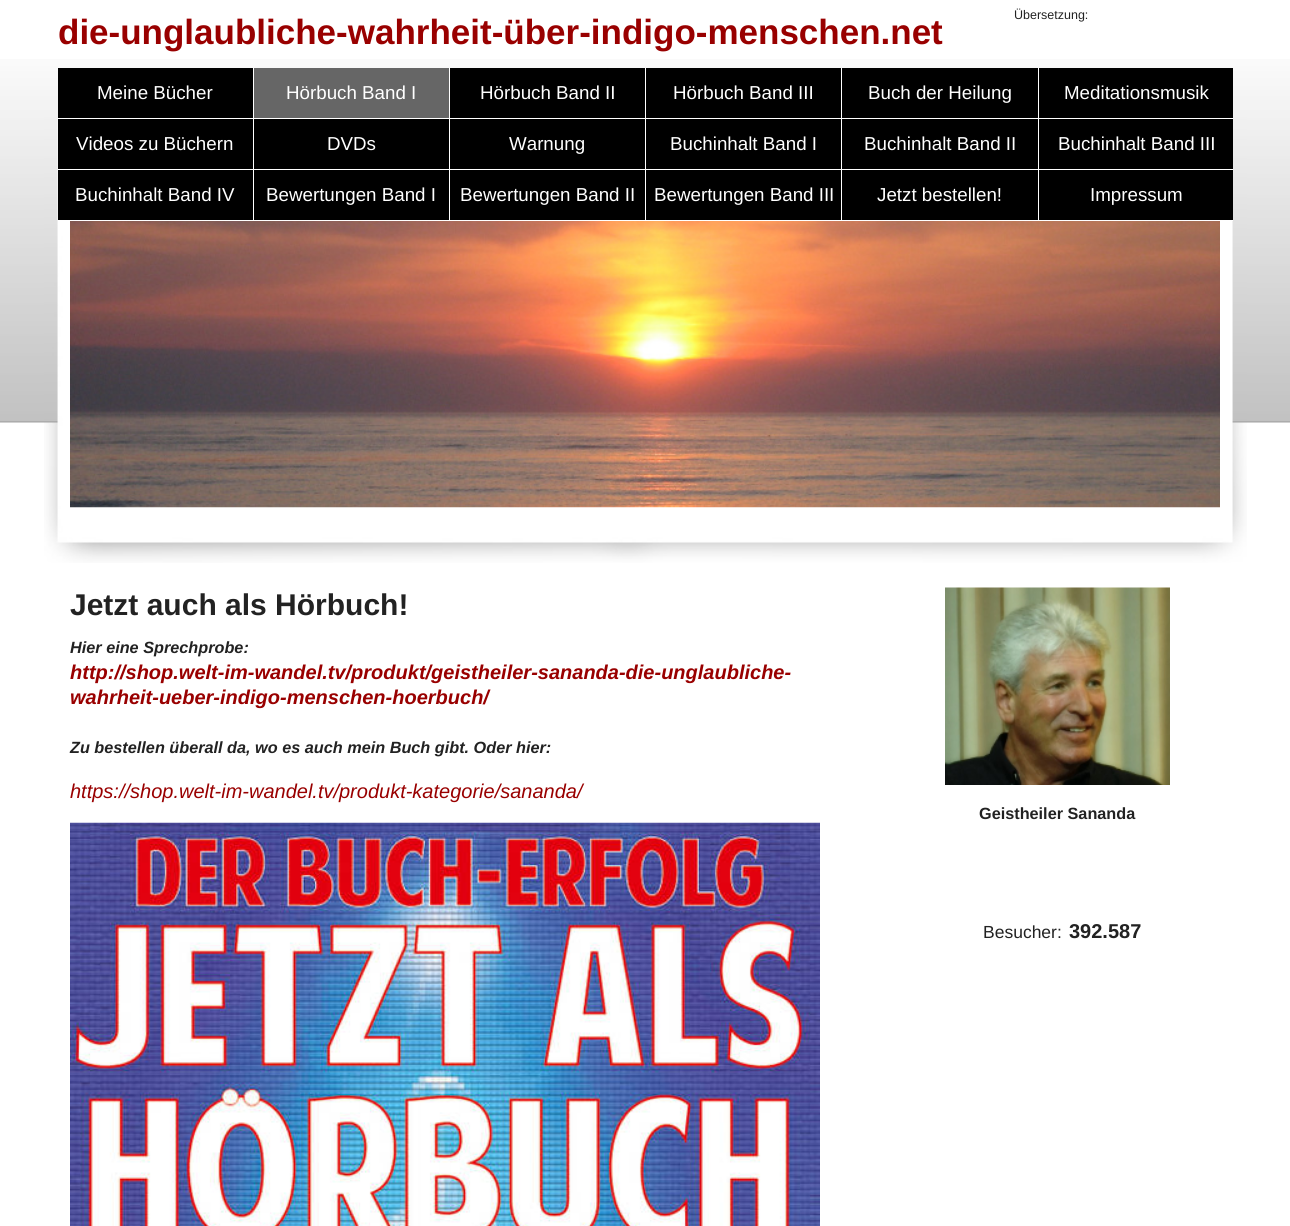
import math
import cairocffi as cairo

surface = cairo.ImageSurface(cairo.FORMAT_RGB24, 1290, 1226)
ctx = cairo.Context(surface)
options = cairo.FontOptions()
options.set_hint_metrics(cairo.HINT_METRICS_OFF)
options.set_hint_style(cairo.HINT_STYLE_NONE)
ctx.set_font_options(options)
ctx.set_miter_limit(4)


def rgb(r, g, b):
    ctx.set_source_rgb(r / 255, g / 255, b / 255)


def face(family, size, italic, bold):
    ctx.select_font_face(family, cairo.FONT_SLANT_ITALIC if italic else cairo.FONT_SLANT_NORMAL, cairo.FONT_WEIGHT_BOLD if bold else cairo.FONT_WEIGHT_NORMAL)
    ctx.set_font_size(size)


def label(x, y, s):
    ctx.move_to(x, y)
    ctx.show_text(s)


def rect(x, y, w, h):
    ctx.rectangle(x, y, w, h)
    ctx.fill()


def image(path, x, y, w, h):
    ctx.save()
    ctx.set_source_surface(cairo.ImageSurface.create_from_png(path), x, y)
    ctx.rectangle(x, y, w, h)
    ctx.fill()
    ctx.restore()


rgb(255, 255, 255)
ctx.paint()
image('image0.png', 0, 59, 1290, 364)
image('image1.png', 44, 116, 1203, 447)
face('Liberation Sans', 12.5, 0, 0)
rgb(34, 34, 34)
label(1014, 19, 'Übersetzung:')
face('Liberation Sans', 35, 0, 1)
rgb(153, 0, 0)
label(58, 44, 'die-unglaubliche-wahrheit-über-indigo-menschen.net')
rgb(0, 0, 0)
rect(58, 68, 195, 50)
rgb(255, 255, 255)
rect(253, 68, 1, 51)
face('Liberation Sans', 18.75, 0, 0)
label(97, 99, 'Meine Bücher')
rgb(102, 102, 102)
rect(254, 68, 195, 50)
rgb(255, 255, 255)
rect(449, 68, 1, 51)
label(286, 99, 'Hörbuch Band I')
rgb(0, 0, 0)
rect(450, 68, 195, 50)
rgb(255, 255, 255)
rect(645, 68, 1, 51)
label(480, 99, 'Hörbuch Band II')
rgb(0, 0, 0)
rect(646, 68, 392, 50)
rgb(255, 255, 255)
rect(841, 68, 1, 51)
label(673, 99, 'Hörbuch Band III')
rect(1038, 68, 1, 51)
label(868, 99, 'Buch der Heilung')
rgb(0, 0, 0)
rect(1039, 68, 194, 50)
rgb(255, 255, 255)
rect(1232, 118, 1, 1)
label(1064, 99, 'Meditationsmusik')
rgb(0, 0, 0)
rect(58, 119, 195, 50)
rgb(255, 255, 255)
label(76, 150, 'Videos zu Büchern')
rgb(0, 0, 0)
rect(254, 119, 195, 50)
rgb(255, 255, 255)
label(327, 150, 'DVDs')
rgb(0, 0, 0)
rect(450, 119, 195, 50)
rgb(255, 255, 255)
label(509, 150, 'Warnung')
rgb(0, 0, 0)
rect(646, 119, 392, 50)
rgb(255, 255, 255)
rect(841, 119, 1, 51)
label(670, 150, 'Buchinhalt Band I')
label(864, 150, 'Buchinhalt Band II')
rgb(0, 0, 0)
rect(1039, 119, 194, 50)
rgb(255, 255, 255)
rect(1232, 169, 1, 1)
label(1058, 150, 'Buchinhalt Band III')
rgb(0, 0, 0)
rect(58, 170, 195, 50)
rgb(255, 255, 255)
label(75, 201, 'Buchinhalt Band IV')
rgb(0, 0, 0)
rect(254, 170, 195, 50)
rgb(255, 255, 255)
label(266, 201, 'Bewertungen Band I')
rgb(0, 0, 0)
rect(450, 170, 195, 50)
rgb(255, 255, 255)
label(460, 201, 'Bewertungen Band II')
rgb(0, 0, 0)
rect(646, 170, 392, 50)
rgb(255, 255, 255)
rect(841, 170, 1, 51)
label(654, 201, 'Bewertungen Band III')
label(877, 201, 'Jetzt bestellen!')
rgb(0, 0, 0)
rect(1039, 170, 194, 50)
rgb(255, 255, 255)
rect(1232, 220, 1, 1)
label(1090, 201, 'Impressum')
image('image2.png', 70, 221, 1150, 287)
face('Liberation Sans', 30, 0, 1)
rgb(34, 34, 34)
label(70, 615, 'Jetzt auch als Hörbuch!')
face('Liberation Sans', 16.25, 1, 1)
label(70, 653, 'Hier eine Sprechprobe:')
face('Liberation Sans', 20, 1, 1)
rgb(153, 0, 0)
label(70, 679, 'http://shop.welt-im-wandel.tv/produkt/geistheiler-sananda-die-unglaubliche-')
label(70, 704, 'wahrheit-ueber-indigo-menschen-hoerbuch/')
face('Liberation Sans', 16.25, 1, 1)
rgb(34, 34, 34)
label(70, 753, 'Zu bestellen überall da, wo es auch mein Buch gibt. Oder hier:')
face('Liberation Sans', 20, 1, 0)
rgb(153, 0, 0)
label(70, 798, 'https://shop.welt-im-wandel.tv/produkt-kategorie/sananda/')
image('image3.png', 70, 822, 750, 404)
image('image4.png', 945, 587, 225, 198)
face('Liberation Sans', 16.25, 0, 1)
rgb(34, 34, 34)
label(979, 819, 'Geistheiler Sananda')
face('Liberation Sans', 17.5, 0, 0)
label(983, 938, 'Besucher:')
face('Liberation Sans', 20, 0, 1)
label(1069, 938, '392.587')
surface.write_to_png('render.png')
